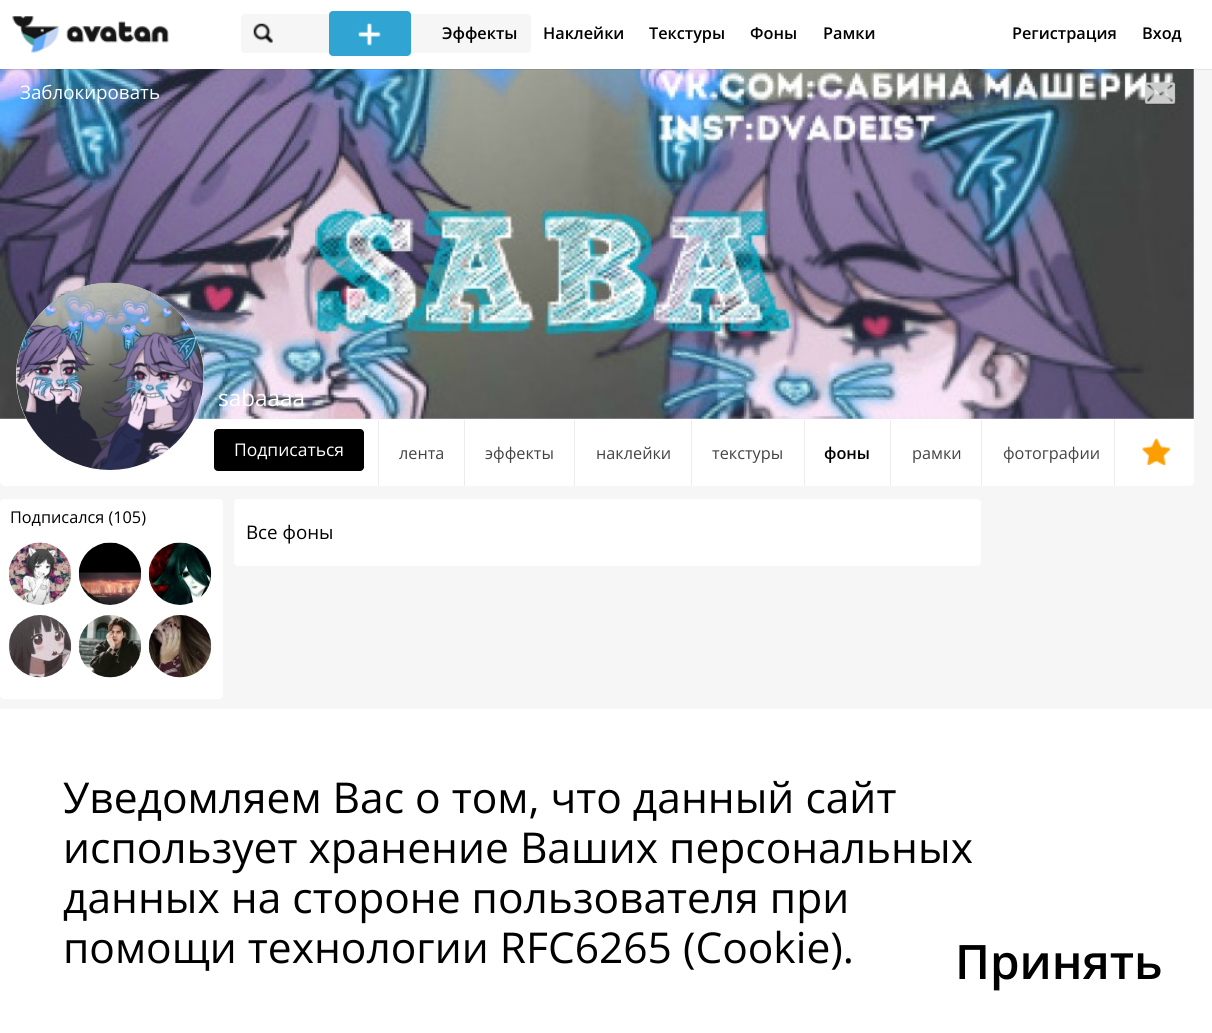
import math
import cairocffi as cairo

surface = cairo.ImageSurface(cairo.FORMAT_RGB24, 1212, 1033)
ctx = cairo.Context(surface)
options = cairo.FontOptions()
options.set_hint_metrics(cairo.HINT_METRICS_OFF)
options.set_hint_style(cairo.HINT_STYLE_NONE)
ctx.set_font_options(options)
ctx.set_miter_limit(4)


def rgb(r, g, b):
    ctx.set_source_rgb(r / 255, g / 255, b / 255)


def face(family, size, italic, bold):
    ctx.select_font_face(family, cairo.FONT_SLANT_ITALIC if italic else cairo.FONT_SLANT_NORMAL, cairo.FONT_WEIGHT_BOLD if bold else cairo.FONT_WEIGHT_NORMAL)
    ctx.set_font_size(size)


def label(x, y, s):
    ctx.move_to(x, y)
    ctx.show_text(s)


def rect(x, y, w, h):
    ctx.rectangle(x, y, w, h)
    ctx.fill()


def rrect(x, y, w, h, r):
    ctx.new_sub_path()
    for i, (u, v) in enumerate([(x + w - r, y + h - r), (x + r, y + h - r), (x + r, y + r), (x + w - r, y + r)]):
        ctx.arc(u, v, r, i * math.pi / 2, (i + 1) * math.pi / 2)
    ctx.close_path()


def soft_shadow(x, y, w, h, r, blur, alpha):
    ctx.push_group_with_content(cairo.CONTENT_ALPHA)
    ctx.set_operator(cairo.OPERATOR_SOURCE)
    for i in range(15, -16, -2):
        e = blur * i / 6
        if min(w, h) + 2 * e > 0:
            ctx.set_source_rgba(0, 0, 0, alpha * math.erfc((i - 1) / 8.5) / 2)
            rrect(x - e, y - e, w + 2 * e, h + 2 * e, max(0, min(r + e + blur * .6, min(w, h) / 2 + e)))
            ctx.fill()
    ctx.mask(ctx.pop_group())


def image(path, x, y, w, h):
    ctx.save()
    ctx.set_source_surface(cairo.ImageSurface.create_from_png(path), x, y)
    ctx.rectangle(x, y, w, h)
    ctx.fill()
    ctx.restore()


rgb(246, 246, 246)
ctx.paint()
rgb(236, 236, 236)
rect(0, 69, 1194, 350)
image('image3.png', 0, 69, 1194, 350)
rgb(0, 0, 0)
soft_shadow(0, 0, 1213, 69, 0, 0.5, 0.3)
rgb(255, 255, 255)
rect(0, 0, 1212, 69)
image('image0.png', 12, 16, 157, 37)
rgb(246, 246, 246)
rrect(241, 14, 290, 39, 4)
ctx.fill()
image('image1.png', 253, 23, 20, 20)
rgb(48, 165, 212)
rrect(329, 11, 82, 45, 4)
ctx.fill()
image('image2.png', 358, 23, 23, 23)
face('Open Sans SemiBold', 16.25, 0, 0)
rgb(0, 0, 0)
label(442, 39, 'Эффекты')
label(543, 39, 'Наклейки')
label(649, 39, 'Текстуры')
label(750, 39, 'Фоны')
label(823, 39, 'Рамки')
label(1012, 39, 'Регистрация')
label(1142, 39, 'Вход')
face('Open Sans', 18.75, 0, 0)
rgb(255, 255, 255)
label(20, 99, 'Заблокировать')
image('image4.png', 1144, 82, 32, 23)
ctx.new_path()
ctx.move_to(0, 419)
ctx.line_to(1194, 419)
ctx.line_to(1194, 482)
ctx.curve_to(1194, 484, 1192, 486, 1190, 486)
ctx.line_to(4, 486)
ctx.curve_to(2, 486, 0, 484, 0, 482)
ctx.close_path()
ctx.fill()
rrect(16, 283, 188, 187, 93.5)
ctx.fill()
image('image5.png', 16, 282, 188, 188)
face('Open Sans', 22.5, 0, 0)
label(218, 406, 'sabaaaa')
rgb(0, 0, 0)
rrect(214, 429, 150, 42, 4)
ctx.fill()
face('Open Sans', 17.5, 0, 0)
rgb(255, 255, 255)
label(234, 456, 'Подписаться')
rgb(237, 237, 237)
rect(378, 420, 1, 66)
face('Open Sans', 16.25, 0, 0)
rgb(68, 68, 68)
label(399, 459, 'лента')
rgb(237, 237, 237)
rect(464, 420, 1, 66)
rgb(68, 68, 68)
label(485, 459, 'эффекты')
rgb(237, 237, 237)
rect(574, 420, 1, 66)
rgb(68, 68, 68)
label(596, 459, 'наклейки')
rgb(237, 237, 237)
rect(691, 420, 1, 66)
rgb(68, 68, 68)
label(712, 459, 'текстуры')
rgb(237, 237, 237)
rect(804, 420, 1, 66)
face('Open Sans SemiBold', 16.25, 0, 0)
rgb(0, 0, 0)
label(824, 459, 'фоны')
rgb(237, 237, 237)
rect(890, 420, 1, 66)
face('Open Sans', 16.25, 0, 0)
rgb(68, 68, 68)
label(912, 459, 'рамки')
rgb(237, 237, 237)
rect(981, 420, 1, 66)
rgb(68, 68, 68)
label(1003, 459, 'фотографии')
rgb(237, 237, 237)
rect(1114, 419, 1, 67)
image('image6.png', 1142, 438, 29, 28)
rgb(255, 255, 255)
rrect(0, 499, 223, 200, 4)
ctx.fill()
rgb(0, 0, 0)
label(10, 523, 'Подписался (105)')
image('image7.png', 8, 542, 64, 63)
image('image8.png', 78, 542, 64, 63)
image('image9.png', 148, 542, 64, 63)
image('image10.png', 8, 615, 64, 63)
image('image11.png', 78, 615, 64, 63)
image('image12.png', 148, 615, 64, 63)
rgb(255, 255, 255)
rrect(234, 499, 747, 67, 4)
ctx.fill()
face('Open Sans', 18.75, 0, 0)
rgb(0, 0, 0)
label(246, 539, 'Все фоны')
rgb(255, 255, 255)
rect(0, 709, 1212, 324)
face('Open Sans', 42.5, 0, 0)
rgb(0, 0, 0)
label(63, 813, 'Уведомляем Вас о том, что данный сайт')
label(63, 863, 'использует хранение Ваших персональных')
label(63, 913, 'данных на стороне пользователя при')
label(63, 963, 'помощи технологии RFC6265 (Cookie).')
face('Open Sans SemiBold', 47.5, 0, 0)
label(955, 979, 'Принять')
surface.write_to_png('render.png')
